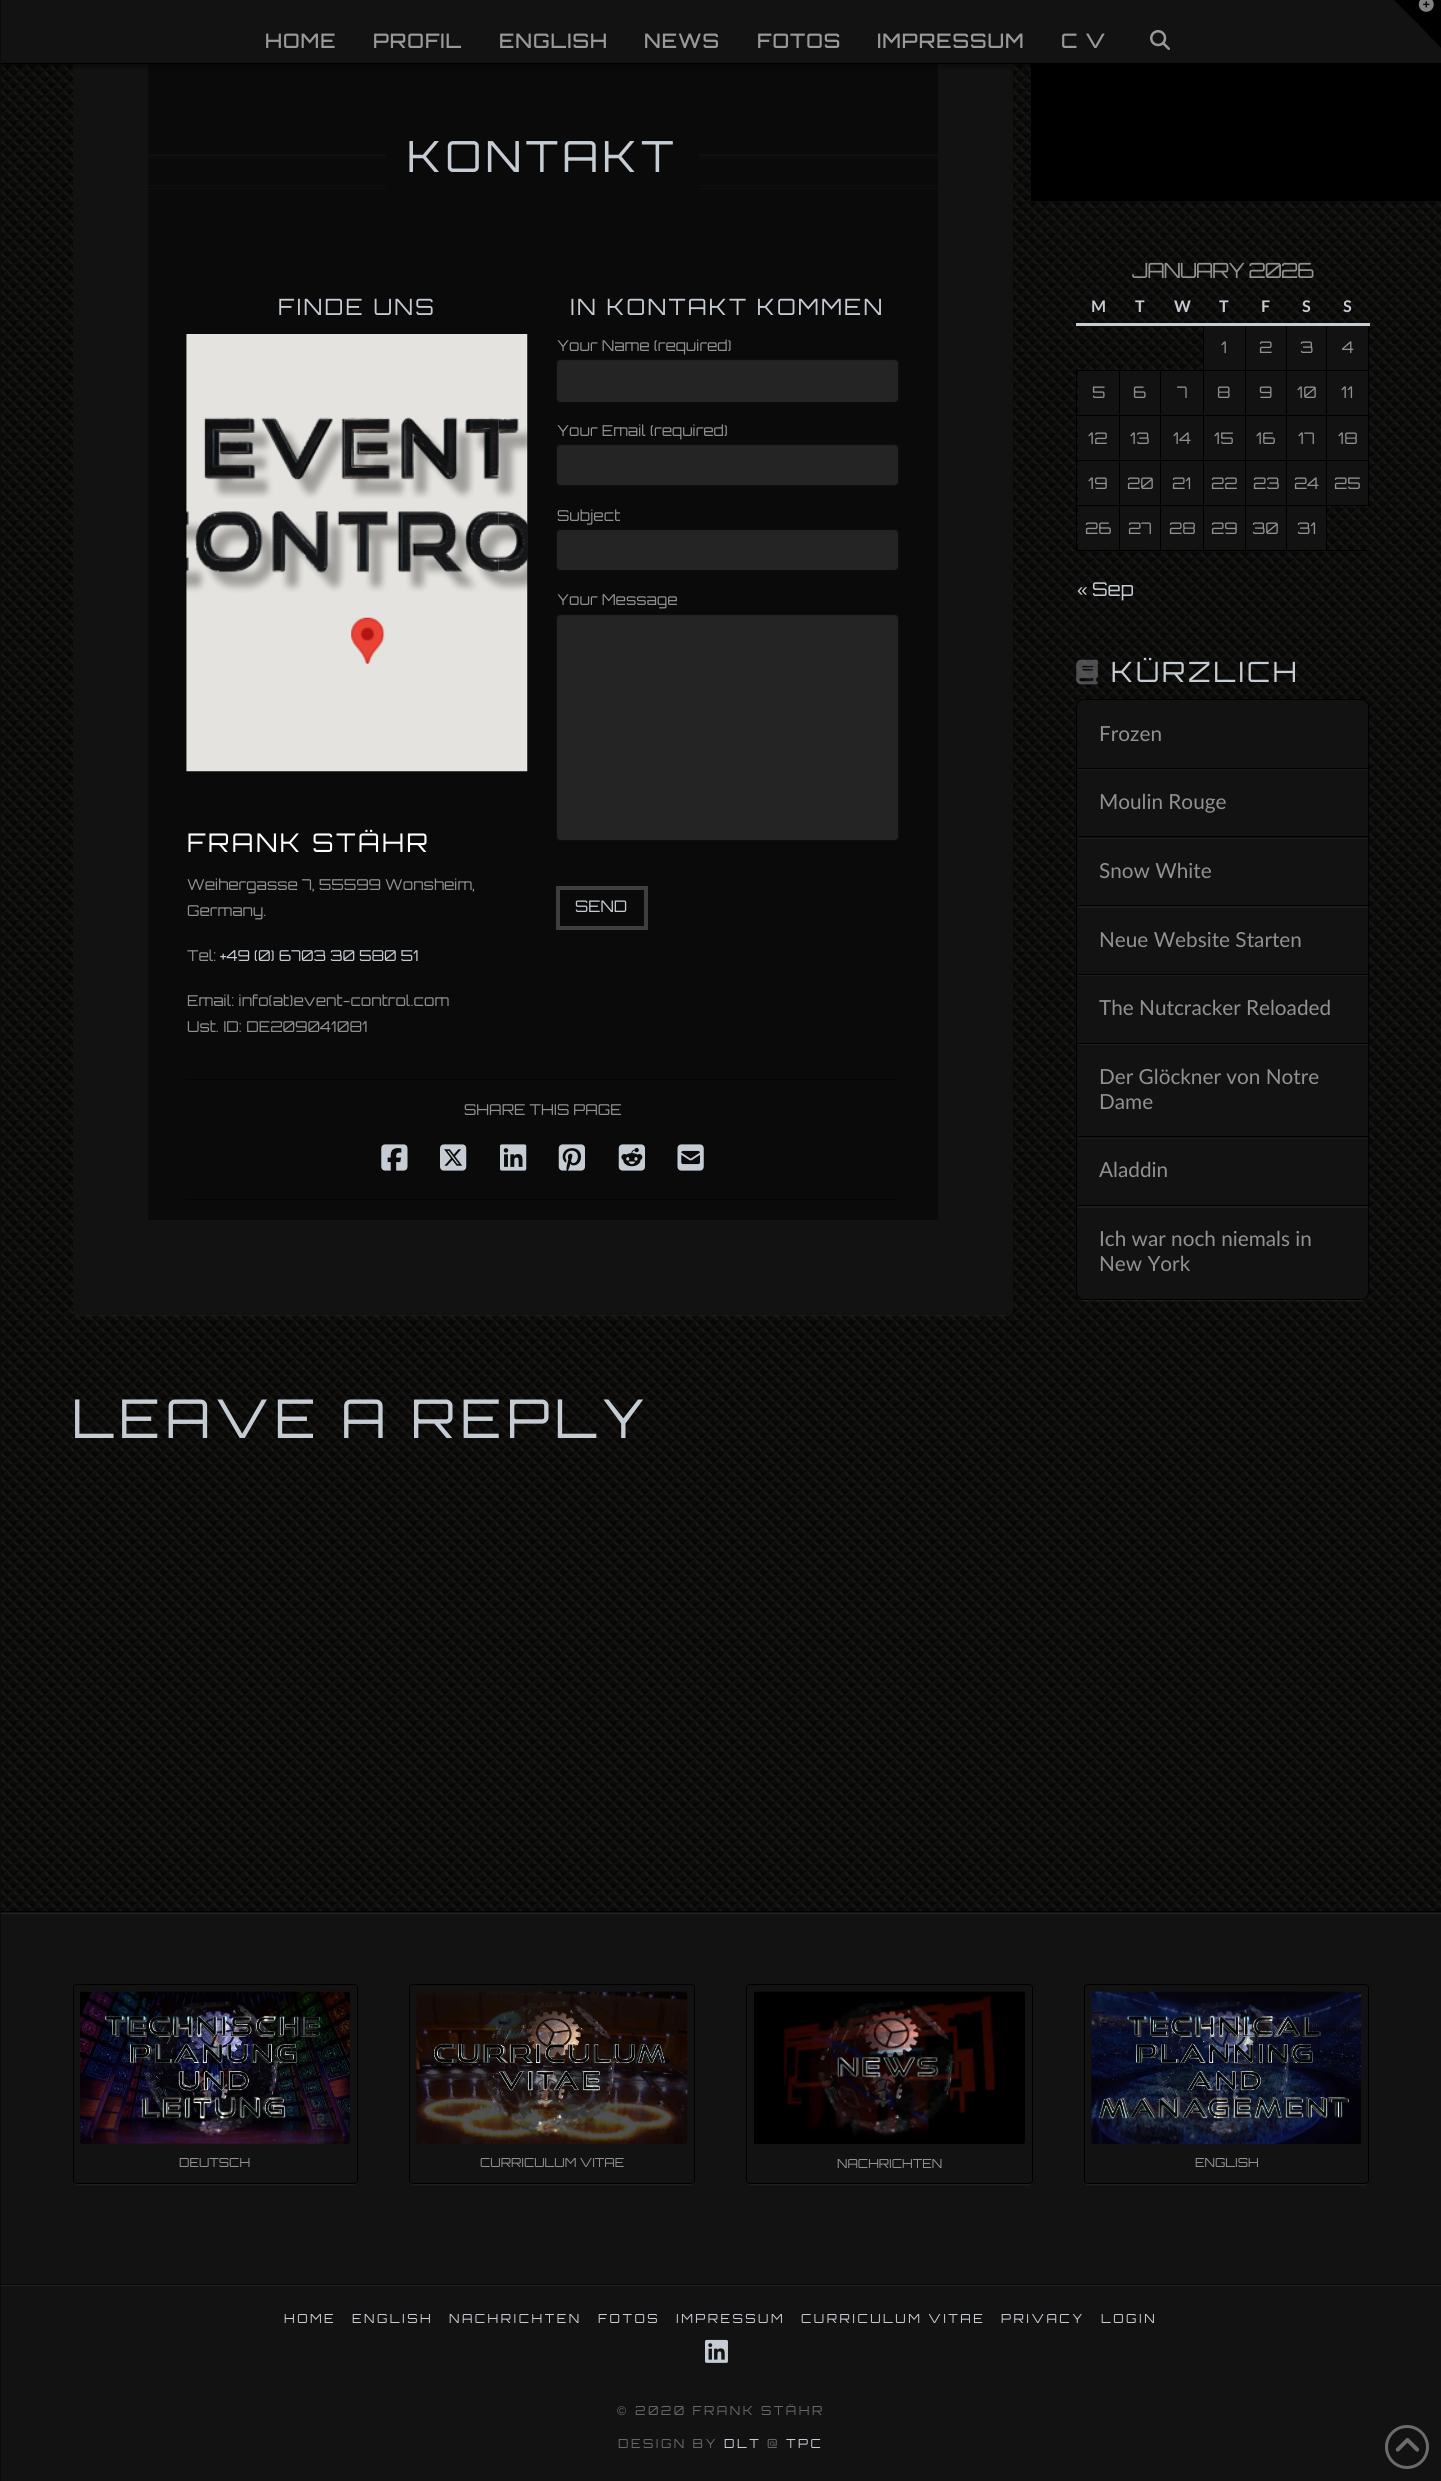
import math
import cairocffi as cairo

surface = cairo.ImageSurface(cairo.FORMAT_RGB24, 1441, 2481)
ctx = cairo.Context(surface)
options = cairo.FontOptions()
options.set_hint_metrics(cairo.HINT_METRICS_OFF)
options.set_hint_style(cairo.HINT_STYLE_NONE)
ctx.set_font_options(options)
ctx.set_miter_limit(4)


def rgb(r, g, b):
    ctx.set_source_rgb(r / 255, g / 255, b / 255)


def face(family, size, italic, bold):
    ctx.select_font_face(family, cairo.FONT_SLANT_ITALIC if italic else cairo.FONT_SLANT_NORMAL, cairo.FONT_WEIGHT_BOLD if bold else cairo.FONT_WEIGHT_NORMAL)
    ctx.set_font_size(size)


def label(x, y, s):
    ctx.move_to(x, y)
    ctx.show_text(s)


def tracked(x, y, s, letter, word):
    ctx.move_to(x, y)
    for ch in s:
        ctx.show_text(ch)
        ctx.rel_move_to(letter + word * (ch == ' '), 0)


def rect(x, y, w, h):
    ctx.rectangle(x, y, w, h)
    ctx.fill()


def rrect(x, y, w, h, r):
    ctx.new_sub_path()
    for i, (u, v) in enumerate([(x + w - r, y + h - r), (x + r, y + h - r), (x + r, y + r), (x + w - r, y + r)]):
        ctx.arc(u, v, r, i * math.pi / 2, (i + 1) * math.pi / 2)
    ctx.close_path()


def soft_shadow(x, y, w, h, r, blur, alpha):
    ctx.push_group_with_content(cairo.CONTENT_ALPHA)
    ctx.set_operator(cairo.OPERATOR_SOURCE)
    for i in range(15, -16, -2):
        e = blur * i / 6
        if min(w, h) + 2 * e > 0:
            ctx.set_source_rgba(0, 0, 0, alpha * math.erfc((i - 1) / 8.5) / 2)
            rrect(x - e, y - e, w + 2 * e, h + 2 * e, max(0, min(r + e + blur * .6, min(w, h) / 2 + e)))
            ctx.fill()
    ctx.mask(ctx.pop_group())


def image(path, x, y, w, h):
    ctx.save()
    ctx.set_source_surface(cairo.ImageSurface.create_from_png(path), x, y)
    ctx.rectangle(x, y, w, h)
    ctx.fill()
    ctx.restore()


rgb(255, 255, 255)
ctx.paint()
image('image0.png', 1, 64, 1440, 1847)
soft_shadow(75, -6, 935, 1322, 2.5, 1, 0.07)
rgb(18, 18, 18)
rrect(73, -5, 940, 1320, 5)
ctx.fill()
rgb(10, 10, 10)
rect(148, 64, 790, 1156)
rgb(0, 0, 0)
rect(1031, 64, 410, 137)
rgb(0, 0, 0)
soft_shadow(0, 3, 1441, 63, 0, 3.5, 0.47)
rgb(0, 0, 0)
rect(0, 63, 1441, 1)
rgb(18, 18, 18)
rect(1, 1912, 1440, 372)
rgb(36, 36, 36)
rect(0, 1913, 1441, 1)
rgb(0, 0, 0)
rect(0, 1911, 1441, 1)
rgb(36, 36, 36)
rect(0, 2285, 1441, 1)
rgb(5, 5, 5)
rect(0, 2284, 1441, 1)
rgb(12, 12, 12)
rect(0, 0, 1, 2481)
rgb(18, 18, 18)
rect(1, 0, 1440, 63)
rgb(0, 0, 0)
ctx.new_path()
ctx.move_to(1394, 0)
ctx.line_to(1441, 0)
ctx.line_to(1418, 24)
ctx.close_path()
ctx.fill()
ctx.new_path()
ctx.move_to(1441, 0)
ctx.line_to(1441, 48)
ctx.line_to(1418, 24)
ctx.close_path()
ctx.fill()
image('image1.png', 1418, 0, 16, 12)
face('Orbitron Medium', 20, 0, 0)
rgb(153, 153, 153)
tracked(265, 48, 'HOME', 1, 0)
tracked(373, 48, 'PROFIL', 1, 0)
tracked(499, 48, 'ENGLISH', 1, 0)
tracked(644, 48, 'NEWS', 1, 0)
tracked(757, 48, 'FOTOS', 1, 0)
tracked(877, 48, 'IMPRESSUM', 1, 0)
tracked(1061, 48, 'C V', 1, 0)
image('image2.png', 1150, 30, 20, 20)
rgb(15, 15, 15)
rect(148, 154, 238, 3)
rect(148, 158, 238, 1)
face('Orbitron', 43, 0, 0)
rgb(198, 204, 211)
tracked(407, 172, 'KONTAKT', 4.25, 0)
rgb(15, 15, 15)
rect(699, 154, 239, 1)
rect(699, 155, 239, 2)
rect(699, 158, 239, 1)
rect(148, 185, 238, 1)
rect(148, 188, 238, 1)
rect(699, 185, 239, 1)
rect(699, 188, 239, 1)
face('Orbitron', 22.5, 0, 0)
rgb(198, 204, 211)
tracked(278, 315, 'FINDE UNS', 2.25, 0)
image('image3.png', 186, 334, 342, 438)
face('Orbitron', 25.75, 0, 0)
rgb(255, 255, 255)
tracked(187, 852, 'FRANK STÄHR', 2.5, 0)
face('Orbitron', 15, 0, 0)
rgb(145, 145, 145)
label(187, 890, 'Weihergasse 7, 55599 Wonsheim,')
label(187, 916, 'Germany.')
label(187, 961, 'Tel:')
rgb(198, 204, 211)
label(220, 961, '+49 (0) 6703 30 580 51')
rgb(145, 145, 145)
label(187, 1006, 'Email: info(at)event-control.com')
label(187, 1032, 'Ust. ID: DE209041081')
face('Orbitron', 22.5, 0, 0)
rgb(198, 204, 211)
tracked(570, 315, 'IN KONTAKT KOMMEN', 2.25, 0)
face('Orbitron', 15, 0, 0)
rgb(145, 145, 145)
label(557, 351, 'Your Name (required)')
rgb(36, 36, 36)
rrect(556, 359, 343, 44, 5)
ctx.fill()
rgb(33, 33, 33)
ctx.new_path()
ctx.move_to(561, 361)
ctx.line_to(894, 361)
ctx.curve_to(896, 361, 898, 363, 898, 365)
ctx.line_to(898, 364)
ctx.curve_to(898, 362, 896, 360, 894, 360)
ctx.line_to(562, 360)
ctx.curve_to(560, 360, 558, 362, 558, 364)
ctx.line_to(558, 365)
ctx.curve_to(558, 363, 559, 361, 561, 361)
ctx.close_path()
ctx.fill()
rrect(556.5, 359.5, 342, 43, 4.5)
rgb(13, 13, 13)
ctx.set_line_width(1)
ctx.stroke()
rgb(145, 145, 145)
label(557, 436, 'Your Email (required)')
rgb(36, 36, 36)
rrect(556, 444, 343, 42, 5)
ctx.fill()
rgb(33, 33, 33)
ctx.new_path()
ctx.move_to(561, 446)
ctx.line_to(894, 446)
ctx.curve_to(896, 446, 898, 448, 898, 450)
ctx.line_to(898, 449)
ctx.curve_to(898, 447, 896, 445, 894, 445)
ctx.line_to(562, 445)
ctx.curve_to(560, 445, 558, 447, 558, 449)
ctx.line_to(558, 450)
ctx.curve_to(558, 448, 559, 446, 561, 446)
ctx.close_path()
ctx.fill()
rrect(556.5, 444.5, 342, 41, 4.5)
rgb(13, 13, 13)
ctx.stroke()
rgb(145, 145, 145)
label(557, 521, 'Subject')
rgb(36, 36, 36)
rrect(556, 529, 343, 42, 5)
ctx.fill()
rgb(33, 33, 33)
ctx.new_path()
ctx.move_to(561, 531)
ctx.line_to(894, 531)
ctx.curve_to(896, 531, 898, 533, 898, 535)
ctx.line_to(898, 534)
ctx.curve_to(898, 532, 896, 530, 894, 530)
ctx.line_to(562, 530)
ctx.curve_to(560, 530, 558, 532, 558, 534)
ctx.line_to(558, 535)
ctx.curve_to(558, 533, 559, 531, 561, 531)
ctx.close_path()
ctx.fill()
rrect(556.5, 529.5, 342, 41, 4.5)
rgb(13, 13, 13)
ctx.stroke()
rgb(145, 145, 145)
label(557, 605, 'Your Message')
rgb(36, 36, 36)
rrect(556, 614, 343, 227, 5)
ctx.fill()
rgb(33, 33, 33)
ctx.new_path()
ctx.move_to(561, 616)
ctx.line_to(894, 616)
ctx.curve_to(896, 616, 898, 618, 898, 620)
ctx.line_to(898, 619)
ctx.curve_to(898, 617, 896, 615, 894, 615)
ctx.line_to(562, 615)
ctx.curve_to(560, 615, 558, 617, 558, 619)
ctx.line_to(558, 620)
ctx.curve_to(558, 618, 559, 616, 561, 616)
ctx.close_path()
ctx.fill()
rrect(556.5, 614.5, 342, 226, 4.5)
rgb(13, 13, 13)
ctx.stroke()
ctx.rectangle(558, 888, 88, 40)
rgb(63, 63, 63)
ctx.set_line_width(4)
ctx.stroke()
face('Orbitron', 16, 0, 0)
rgb(198, 204, 211)
label(575, 912, 'SEND')
rgb(5, 5, 5)
rect(186, 1079, 713, 1)
rect(186, 1199, 713, 1)
face('Orbitron', 15, 0, 0)
rgb(145, 145, 145)
label(464, 1115, 'SHARE THIS PAGE')
image('image4.png', 381, 1144, 27, 27)
image('image5.png', 440, 1144, 27, 27)
image('image6.png', 500, 1144, 27, 27)
image('image7.png', 558, 1144, 27, 27)
image('image8.png', 618, 1144, 27, 27)
image('image9.png', 677, 1144, 27, 27)
face('Orbitron', 53.5, 0, 0)
rgb(198, 204, 211)
tracked(72, 1438, 'LEAVE A REPLY', 5.4, 0)
face('Orbitron', 21, 0, 0)
rgb(145, 145, 145)
tracked(1132, 278, 'JANUARY 2026', -1.25, 0)
face('Lato', 16, 0, 1)
rgb(198, 204, 211)
label(1091, 312, 'M')
label(1135, 312, 'T')
label(1174, 312, 'W')
label(1219, 312, 'T')
label(1261, 312, 'F')
label(1302, 312, 'S')
rgb(0, 0, 0)
rect(1326, 370, 43, 1)
rect(1326, 415, 43, 1)
rect(1326, 460, 43, 1)
rect(1326, 505, 43, 1)
rect(1326, 550, 43, 1)
rect(1326, 505, 1, 46)
rect(1286, 505, 42, 1)
rect(1326, 460, 1, 46)
rect(1286, 460, 42, 1)
rect(1326, 415, 1, 46)
rect(1286, 415, 42, 1)
rect(1326, 370, 1, 46)
rect(1286, 370, 42, 1)
rgb(18, 18, 18)
rect(1246, 371, 80, 44)
rect(1246, 416, 80, 44)
rect(1246, 461, 80, 44)
rect(1246, 506, 80, 44)
rgb(0, 0, 0)
rect(1286, 550, 42, 1)
rect(1286, 505, 1, 46)
rect(1245, 505, 43, 1)
rect(1286, 460, 1, 46)
rect(1245, 460, 43, 1)
rect(1286, 415, 1, 46)
rect(1245, 415, 43, 1)
rect(1286, 370, 1, 46)
rect(1245, 370, 43, 1)
rect(1245, 550, 43, 1)
rect(1245, 505, 1, 46)
rect(1203, 505, 43, 1)
rect(1245, 460, 1, 46)
rect(1203, 460, 43, 1)
rect(1245, 415, 1, 46)
rect(1203, 415, 43, 1)
rect(1245, 370, 1, 46)
rect(1203, 370, 43, 1)
rect(1203, 550, 43, 1)
rect(1203, 505, 1, 46)
rect(1160, 505, 44, 1)
rect(1203, 460, 1, 46)
rect(1160, 460, 44, 1)
rect(1203, 415, 1, 46)
rect(1160, 415, 44, 1)
rect(1203, 370, 1, 46)
rect(1160, 370, 44, 1)
rect(1203, 324, 1, 47)
rect(1245, 324, 1, 47)
rgb(18, 18, 18)
rect(1246, 326, 80, 44)
rgb(0, 0, 0)
rect(1286, 324, 1, 47)
rect(1326, 324, 1, 47)
rect(1368, 460, 1, 46)
rect(1368, 415, 1, 46)
rect(1368, 324, 1, 92)
rgb(198, 204, 211)
rect(1076, 323, 294, 3)
label(1343, 312, 'S')
rgb(18, 18, 18)
rect(1204, 326, 41, 44)
face('Orbitron', 16, 0, 0)
rgb(145, 145, 145)
label(1221, 353, '1')
label(1259, 353, '2')
label(1300, 353, '3')
rgb(18, 18, 18)
rect(1327, 326, 41, 44)
rgb(145, 145, 145)
label(1342, 353, '4')
rgb(18, 18, 18)
rect(1078, 371, 41, 44)
rgb(0, 0, 0)
rect(1160, 550, 44, 1)
rect(1160, 505, 1, 46)
rect(1119, 505, 42, 1)
rect(1160, 460, 1, 46)
rect(1119, 460, 42, 1)
rect(1160, 415, 1, 46)
rect(1119, 415, 42, 1)
rect(1160, 370, 1, 46)
rect(1119, 370, 42, 1)
rect(1119, 550, 42, 1)
rect(1119, 505, 1, 46)
rect(1076, 505, 44, 1)
rect(1119, 460, 1, 46)
rect(1076, 460, 44, 1)
rect(1119, 415, 1, 46)
rect(1076, 415, 44, 1)
rect(1119, 370, 1, 46)
rect(1076, 370, 44, 1)
rect(1076, 550, 44, 1)
rect(1076, 505, 1, 46)
rect(1076, 460, 1, 46)
rect(1076, 415, 1, 46)
rect(1076, 370, 1, 46)
rgb(145, 145, 145)
label(1092, 398, '5')
rgb(18, 18, 18)
rect(1120, 371, 40, 44)
rgb(145, 145, 145)
label(1133, 398, '6')
rgb(18, 18, 18)
rect(1161, 371, 42, 44)
rgb(145, 145, 145)
label(1177, 398, '7')
rgb(18, 18, 18)
rect(1204, 371, 41, 44)
rgb(145, 145, 145)
label(1217, 398, '8')
label(1259, 398, '9')
label(1297, 398, '10')
rgb(18, 18, 18)
rect(1327, 371, 41, 44)
rgb(145, 145, 145)
label(1341, 398, '11')
rgb(18, 18, 18)
rect(1078, 416, 41, 44)
rgb(145, 145, 145)
label(1088, 444, '12')
rgb(18, 18, 18)
rect(1120, 416, 40, 44)
rgb(145, 145, 145)
label(1130, 444, '13')
rgb(18, 18, 18)
rect(1161, 416, 42, 44)
rgb(145, 145, 145)
label(1173, 444, '14')
rgb(18, 18, 18)
rect(1204, 416, 41, 44)
rgb(145, 145, 145)
label(1214, 444, '15')
label(1256, 444, '16')
label(1298, 444, '17')
rgb(18, 18, 18)
rect(1327, 416, 41, 44)
rgb(145, 145, 145)
label(1338, 444, '18')
rgb(18, 18, 18)
rect(1078, 461, 41, 44)
rgb(145, 145, 145)
label(1088, 489, '19')
rgb(18, 18, 18)
rect(1120, 461, 40, 44)
rgb(145, 145, 145)
label(1127, 489, '20')
rgb(18, 18, 18)
rect(1161, 461, 42, 44)
rgb(145, 145, 145)
label(1172, 489, '21')
rgb(18, 18, 18)
rect(1204, 461, 41, 44)
rgb(145, 145, 145)
label(1211, 489, '22')
label(1253, 489, '23')
label(1294, 489, '24')
rgb(18, 18, 18)
rect(1327, 461, 41, 44)
rgb(145, 145, 145)
label(1334, 489, '25')
rgb(18, 18, 18)
rect(1078, 506, 41, 44)
rgb(145, 145, 145)
label(1085, 534, '26')
rgb(18, 18, 18)
rect(1120, 506, 40, 44)
rgb(145, 145, 145)
label(1128, 534, '27')
rgb(18, 18, 18)
rect(1161, 506, 42, 44)
rgb(145, 145, 145)
label(1169, 534, '28')
rgb(18, 18, 18)
rect(1204, 506, 41, 44)
rgb(145, 145, 145)
label(1211, 534, '29')
label(1252, 534, '30')
label(1297, 534, '31')
face('Liberation Sans', 19, 0, 0)
rgb(198, 204, 211)
label(1077, 596, '«')
face('Orbitron', 19, 0, 0)
label(1092, 596, 'Sep')
image('image10.png', 1076, 659, 22, 26)
face('Orbitron', 28, 0, 0)
tracked(1111, 682, 'KÜRZLICH', 2.75, 0)
rgb(255, 255, 255)
soft_shadow(1079, 705, 287, 596, 5, 1, 0.07)
rgb(18, 18, 18)
rrect(1076, 699, 293, 601, 8)
ctx.fill()
rrect(1076.5, 699.5, 292, 600, 7.5)
ctx.set_source_rgba(0, 0, 0, 0.95)
ctx.set_line_width(1)
ctx.stroke()
rgb(28, 28, 28)
ctx.new_path()
ctx.move_to(1078, 769)
ctx.line_to(1078, 770)
ctx.line_to(1368, 770)
ctx.line_to(1368, 706)
ctx.line_to(1368, 704)
ctx.line_to(1368, 769)
ctx.close_path()
ctx.fill()
rgb(1, 1, 1)
rect(1078, 768, 290, 1)
face('Lato', 20.75, 0, 0)
rgb(145, 145, 145)
label(1099, 741, 'Frozen')
rgb(28, 28, 28)
ctx.new_path()
ctx.move_to(1078, 838)
ctx.line_to(1078, 839)
ctx.line_to(1368, 839)
ctx.line_to(1368, 770)
ctx.line_to(1368, 838)
ctx.close_path()
ctx.fill()
rgb(1, 1, 1)
rect(1078, 836, 290, 1)
rgb(145, 145, 145)
label(1099, 809, 'Moulin Rouge')
rgb(28, 28, 28)
ctx.new_path()
ctx.move_to(1078, 906)
ctx.line_to(1078, 908)
ctx.line_to(1368, 908)
ctx.line_to(1368, 839)
ctx.line_to(1368, 906)
ctx.close_path()
ctx.fill()
rgb(1, 1, 1)
rect(1078, 905, 290, 1)
rgb(145, 145, 145)
label(1099, 878, 'Snow White')
rgb(28, 28, 28)
ctx.new_path()
ctx.move_to(1078, 975)
ctx.line_to(1078, 976)
ctx.line_to(1368, 976)
ctx.line_to(1368, 908)
ctx.line_to(1368, 975)
ctx.close_path()
ctx.fill()
rgb(1, 1, 1)
rect(1078, 974, 290, 1)
rgb(145, 145, 145)
label(1099, 947, 'Neue Website Starten')
rgb(28, 28, 28)
ctx.new_path()
ctx.move_to(1078, 1044)
ctx.line_to(1078, 1045)
ctx.line_to(1368, 1045)
ctx.line_to(1368, 976)
ctx.line_to(1368, 1044)
ctx.close_path()
ctx.fill()
rgb(1, 1, 1)
rect(1078, 1043, 290, 1)
rgb(145, 145, 145)
label(1099, 1015, 'The Nutcracker Reloaded')
rgb(28, 28, 28)
ctx.new_path()
ctx.move_to(1078, 1138)
ctx.line_to(1078, 1139)
ctx.line_to(1368, 1139)
ctx.line_to(1368, 1045)
ctx.line_to(1368, 1138)
ctx.close_path()
ctx.fill()
rgb(1, 1, 1)
rect(1078, 1136, 290, 1)
rgb(145, 145, 145)
label(1099, 1084, 'Der Glöckner von Notre')
label(1099, 1109, 'Dame')
rgb(28, 28, 28)
ctx.new_path()
ctx.move_to(1078, 1206)
ctx.line_to(1078, 1208)
ctx.line_to(1368, 1208)
ctx.line_to(1368, 1139)
ctx.line_to(1368, 1206)
ctx.close_path()
ctx.fill()
rgb(1, 1, 1)
rect(1078, 1205, 290, 1)
rgb(145, 145, 145)
label(1099, 1177, 'Aladdin')
label(1099, 1246, 'Ich war noch niemals in')
label(1099, 1271, 'New York')
rgb(255, 255, 255)
soft_shadow(75, 1990, 280, 195, 1, 1, 0.07)
rgb(18, 18, 18)
rrect(73.5, 1984.5, 284, 199, 3.5)
ctx.fill_preserve()
rgb(0, 0, 0)
ctx.stroke()
image('image11.png', 80, 1991, 270, 153)
face('Orbitron', 12.5, 0, 0)
rgb(145, 145, 145)
label(179, 2167, 'DEUTSCH')
rgb(255, 255, 255)
soft_shadow(411, 1990, 282, 195, 1, 1, 0.07)
rgb(18, 18, 18)
rrect(409.5, 1984.5, 285, 199, 3.5)
ctx.fill_preserve()
rgb(0, 0, 0)
ctx.stroke()
image('image12.png', 416, 1991, 272, 153)
rgb(145, 145, 145)
label(480, 2167, 'CURRICULUM VITAE')
rgb(255, 255, 255)
soft_shadow(749, 1990, 281, 195, 1, 1, 0.07)
rgb(18, 18, 18)
rrect(746.5, 1984.5, 286, 199, 3.5)
ctx.fill_preserve()
rgb(0, 0, 0)
ctx.stroke()
image('image13.png', 754, 1991, 271, 153)
rgb(145, 145, 145)
label(837, 2168, 'NACHRICHTEN')
rgb(255, 255, 255)
soft_shadow(1086, 1990, 280, 195, 1, 1, 0.07)
rgb(18, 18, 18)
rrect(1084.5, 1984.5, 284, 199, 3.5)
ctx.fill_preserve()
rgb(0, 0, 0)
ctx.stroke()
image('image14.png', 1091, 1991, 270, 153)
rgb(145, 145, 145)
label(1195, 2167, 'ENGLISH')
rgb(18, 18, 18)
rect(1, 2286, 1440, 195)
rgb(198, 204, 211)
tracked(284, 2323, 'HOME', 2.5, 0)
tracked(352, 2323, 'ENGLISH', 2.5, 0)
tracked(449, 2323, 'NACHRICHTEN', 2.5, 0)
tracked(598, 2323, 'FOTOS', 2.5, 0)
tracked(676, 2323, 'IMPRESSUM', 2.5, 0)
tracked(801, 2323, 'CURRICULUM VITAE', 2.5, 0)
tracked(1001, 2323, 'PRIVACY', 2.5, 0)
tracked(1101, 2323, 'LOGIN', 2.5, 0)
image('image15.png', 705, 2339, 23, 24)
face('Liberation Sans', 12.5, 0, 0)
rgb(102, 102, 102)
tracked(617, 2415, '©', 2.5, 0)
face('Orbitron', 12.5, 0, 0)
tracked(635, 2415, '2020 FRANK STÄHR', 2.5, 0)
tracked(618, 2448, 'DESIGN BY', 2.5, 0)
rgb(198, 204, 211)
tracked(724, 2448, 'DLT', 2.5, 0)
rgb(102, 102, 102)
tracked(767, 2448, '@', 2.5, 0)
rgb(198, 204, 211)
tracked(786, 2448, 'TPC', 2.5, 0)
ctx.new_path()
ctx.arc(1407, 2447, 20.5, 0, 2 * math.pi)
rgb(107, 107, 107)
ctx.set_line_width(3)
ctx.stroke()
image('image16.png', 1395, 2438, 25, 14)
surface.write_to_png('render.png')
